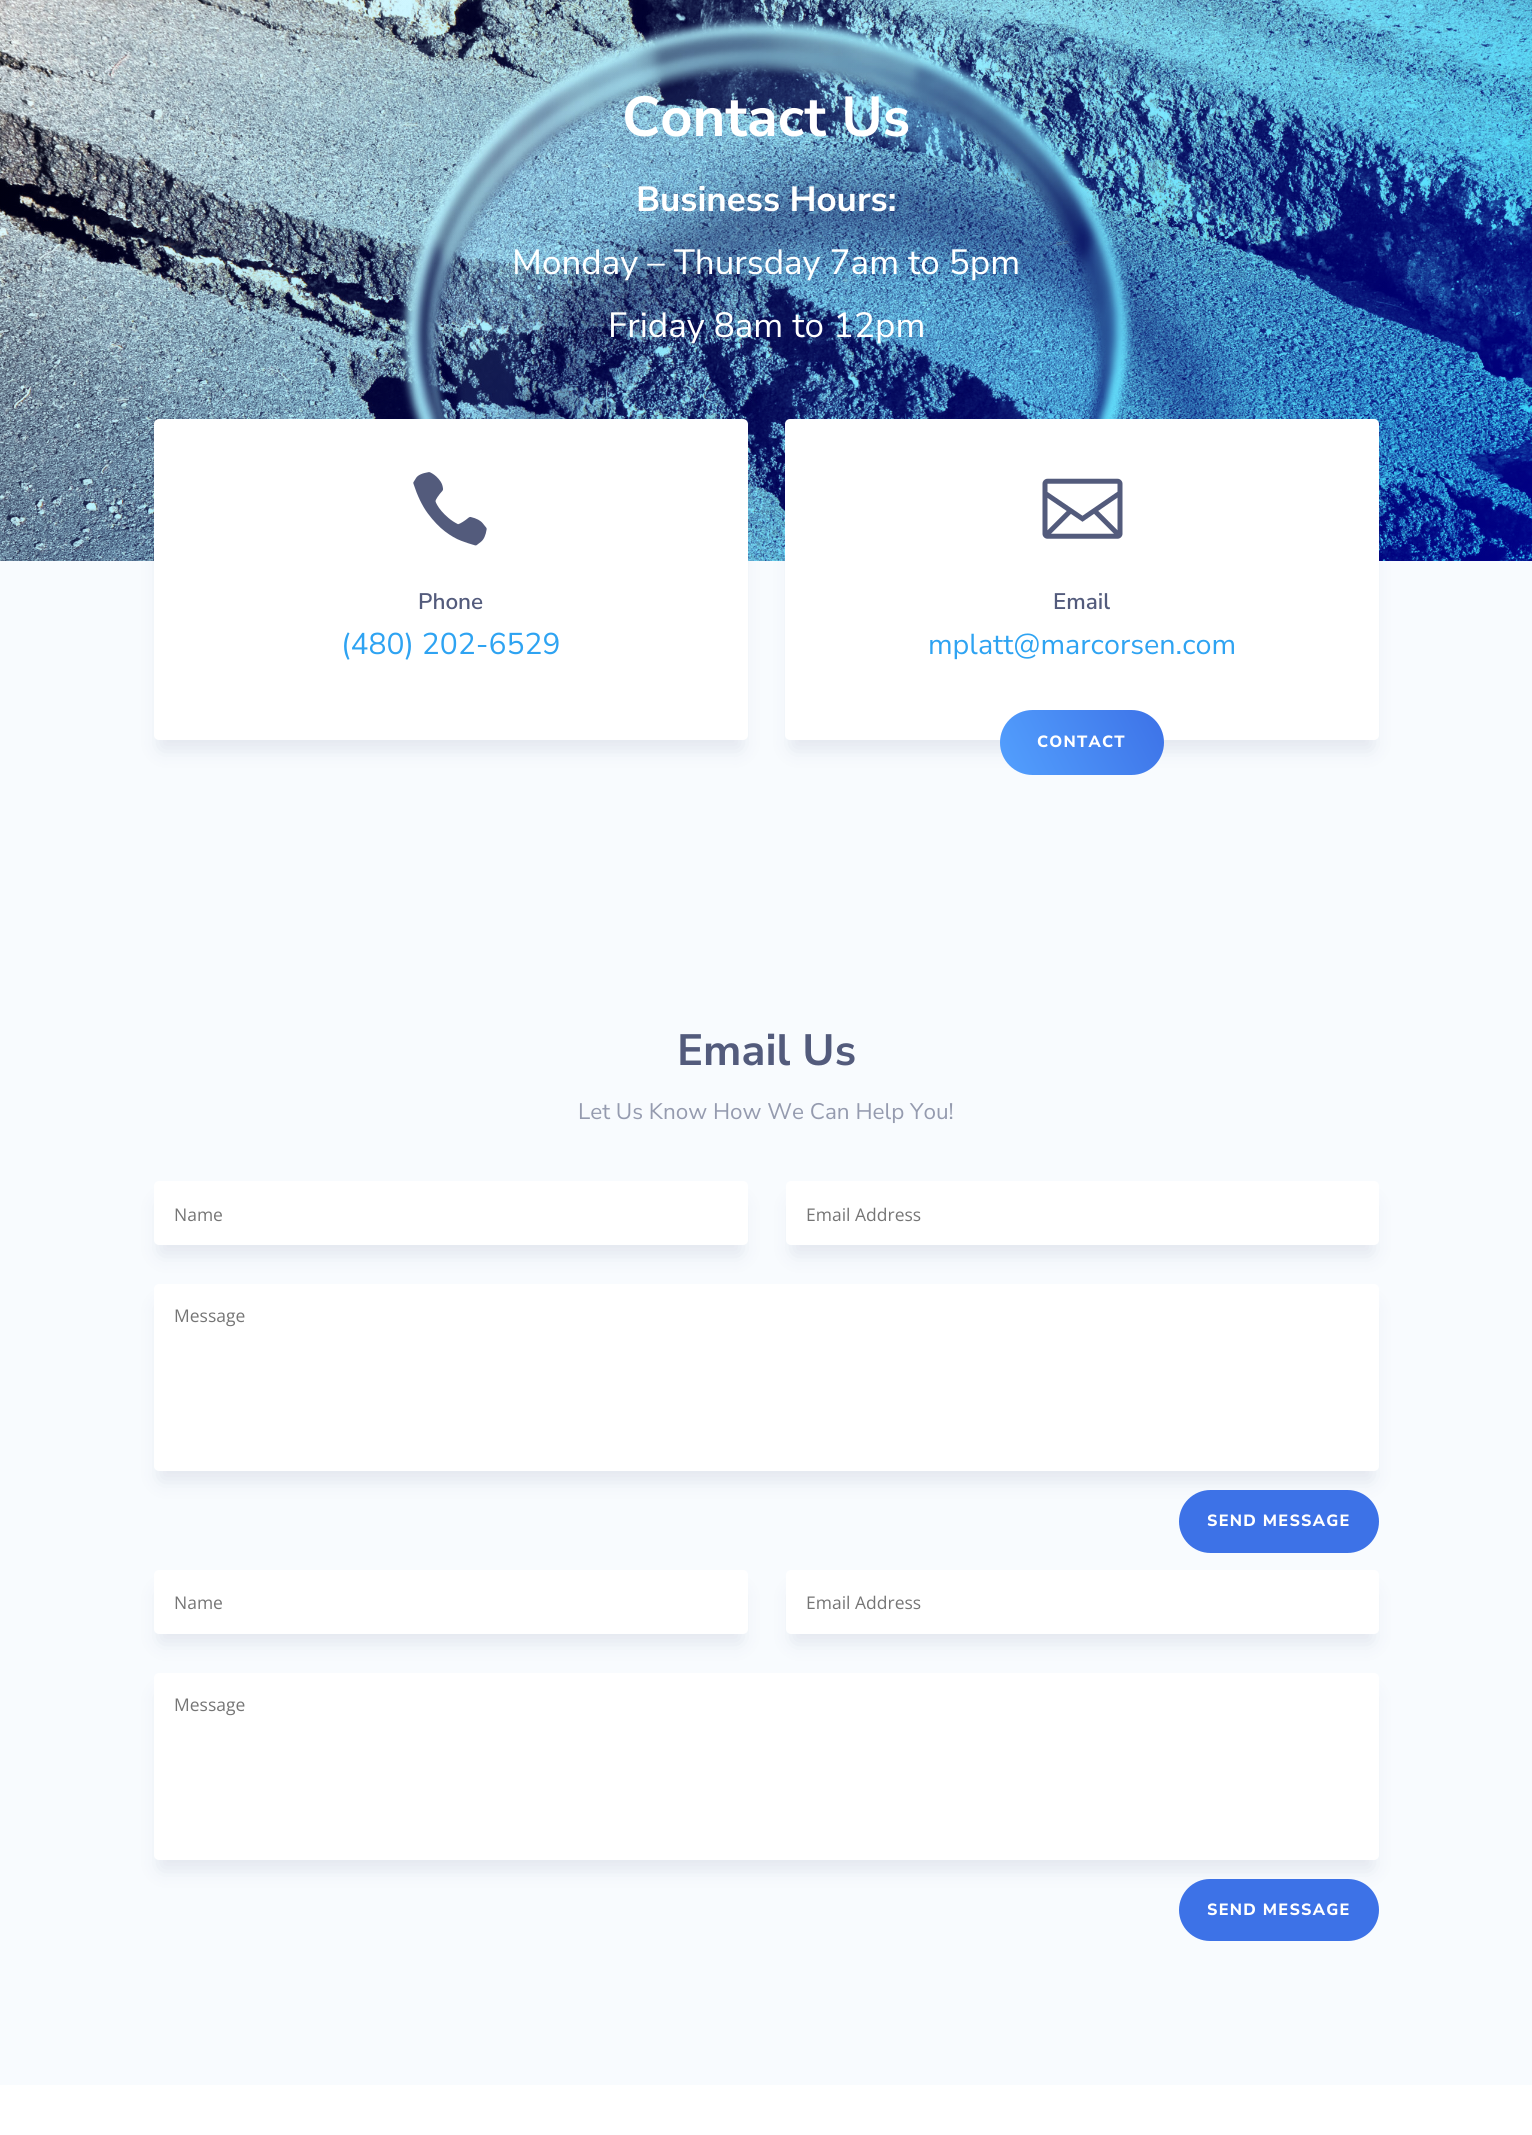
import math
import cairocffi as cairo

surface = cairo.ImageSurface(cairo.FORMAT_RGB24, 1532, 2135)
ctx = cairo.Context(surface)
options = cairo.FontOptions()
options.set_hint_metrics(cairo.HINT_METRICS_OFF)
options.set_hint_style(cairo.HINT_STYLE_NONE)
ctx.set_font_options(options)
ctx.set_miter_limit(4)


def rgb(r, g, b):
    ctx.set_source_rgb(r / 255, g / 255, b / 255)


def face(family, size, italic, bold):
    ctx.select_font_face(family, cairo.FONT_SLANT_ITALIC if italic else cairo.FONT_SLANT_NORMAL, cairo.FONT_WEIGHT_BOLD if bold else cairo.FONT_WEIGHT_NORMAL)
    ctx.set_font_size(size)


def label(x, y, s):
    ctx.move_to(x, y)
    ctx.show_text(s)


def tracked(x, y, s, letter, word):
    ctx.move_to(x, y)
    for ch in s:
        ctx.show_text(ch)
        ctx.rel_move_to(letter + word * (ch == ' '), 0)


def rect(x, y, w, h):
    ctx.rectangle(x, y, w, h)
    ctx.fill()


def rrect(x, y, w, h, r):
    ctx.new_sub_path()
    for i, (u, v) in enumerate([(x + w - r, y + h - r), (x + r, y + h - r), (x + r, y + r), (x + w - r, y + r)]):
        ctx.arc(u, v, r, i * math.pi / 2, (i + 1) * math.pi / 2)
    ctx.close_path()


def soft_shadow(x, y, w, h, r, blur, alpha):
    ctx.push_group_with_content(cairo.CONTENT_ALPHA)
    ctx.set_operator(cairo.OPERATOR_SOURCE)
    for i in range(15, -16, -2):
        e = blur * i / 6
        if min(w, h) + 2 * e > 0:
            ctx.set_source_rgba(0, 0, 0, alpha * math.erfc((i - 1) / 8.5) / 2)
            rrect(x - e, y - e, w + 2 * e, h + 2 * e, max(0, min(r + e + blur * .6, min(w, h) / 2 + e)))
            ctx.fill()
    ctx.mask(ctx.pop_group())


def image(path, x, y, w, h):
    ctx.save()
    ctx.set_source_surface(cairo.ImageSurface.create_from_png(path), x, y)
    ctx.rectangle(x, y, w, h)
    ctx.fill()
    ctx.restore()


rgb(255, 255, 255)
ctx.paint()
image('image0.png', 0, 0, 1532, 561)
rgb(248, 251, 254)
ctx.set_fill_rule(cairo.FILL_RULE_EVEN_ODD)
ctx.new_path()
ctx.move_to(-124, -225)
ctx.line_to(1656, -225)
ctx.line_to(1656, 990)
ctx.line_to(-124, 990)
ctx.close_path()
ctx.move_to(0, -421)
ctx.line_to(1532, -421)
ctx.curve_to(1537, -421, 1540, -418, 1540, -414)
ctx.line_to(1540, 554)
ctx.curve_to(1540, 558, 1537, 561, 1532, 561)
ctx.line_to(0, 561)
ctx.curve_to(-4, 561, -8, 558, -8, 554)
ctx.line_to(-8, -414)
ctx.curve_to(-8, -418, -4, -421, 0, -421)
ctx.close_path()
ctx.fill()
face('Nunito Sans ExtraLight', 56.25, 0, 0)
rgb(255, 255, 255)
label(622, 136, 'Contact Us')
face('Nunito Sans ExtraLight', 35, 0, 0)
label(636, 211, 'Business Hours:')
face('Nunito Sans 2 ExtraLight', 35, 0, 0)
label(512, 274, 'Monday – Thursday 7am to 5pm')
label(608, 337, 'Friday 8am to 12pm')
rgb(34, 56, 101)
soft_shadow(161, 441, 579, 307, 0, 11, 0.12)
rgb(255, 255, 255)
rrect(154, 419, 594, 321, 5)
ctx.fill()
image('image1.png', 413, 472, 74, 74)
face('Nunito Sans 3 ExtraLight', 22.5, 0, 0)
rgb(83, 91, 124)
label(418, 609, 'Phone')
face('Nunito Sans 2 ExtraLight', 30, 0, 0)
rgb(46, 163, 242)
label(341, 654, '(480) 202-6529')
rgb(34, 56, 101)
soft_shadow(793, 441, 578, 307, 0, 11, 0.12)
rgb(255, 255, 255)
rrect(785, 419, 594, 321, 5)
ctx.fill()
image('image2.png', 1042, 478, 81, 61)
face('Nunito Sans 3 ExtraLight', 22.5, 0, 0)
rgb(83, 91, 124)
label(1053, 609, 'Email')
face('Nunito Sans 2 ExtraLight', 28.75, 0, 0)
rgb(46, 163, 242)
label(928, 654, 'mplatt@marcorsen.com')
gradient = cairo.LinearGradient(1160, 703, 1004, 782)
gradient.add_color_stop_rgba(0, 0.239, 0.447, 0.906, 1)
gradient.add_color_stop_rgba(1, 0.325, 0.627, 0.996, 1)
ctx.set_source(gradient)
rrect(1000, 710, 164, 65, 32.5)
ctx.fill()
face('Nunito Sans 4 ExtraLight', 16.25, 0, 0)
rgb(255, 255, 255)
tracked(1037, 747, 'CONTACT', 1.25, 0)
rgb(248, 251, 254)
rect(0, 990, 1532, 1095)
face('Nunito Sans ExtraLight', 43.75, 0, 0)
rgb(83, 91, 124)
label(677, 1065, 'Email Us')
face('Nunito Sans 2 ExtraLight', 22.5, 0, 0)
rgb(149, 155, 175)
label(578, 1119, 'Let Us Know How We Can Help You!')
rgb(34, 56, 101)
soft_shadow(161, 1204, 579, 49, 0, 11, 0.12)
rgb(255, 255, 255)
rrect(154, 1181, 594, 64, 5)
ctx.fill()
face('Open Sans', 17.5, 0, 0)
rgb(117, 117, 117)
label(174, 1221, 'Name')
rgb(34, 56, 101)
soft_shadow(794, 1204, 577, 49, 0, 11, 0.12)
rgb(255, 255, 255)
rrect(786, 1181, 593, 64, 5)
ctx.fill()
rgb(117, 117, 117)
label(806, 1221, 'Email Address')
rgb(34, 56, 101)
soft_shadow(161, 1306, 1210, 173, 0, 11, 0.12)
rgb(255, 255, 255)
rrect(154, 1284, 1225, 187, 5)
ctx.fill()
rgb(117, 117, 117)
label(174, 1322, 'Message')
rgb(61, 114, 231)
rrect(1185.5, 1496.5, 187, 50, 25)
ctx.fill_preserve()
ctx.set_line_width(13)
ctx.stroke()
face('Nunito Sans 4 ExtraLight', 16.25, 0, 0)
rgb(255, 255, 255)
tracked(1207, 1526, 'SEND MESSAGE', 1.25, 0)
rgb(34, 56, 101)
soft_shadow(161, 1593, 579, 48, 0, 11, 0.12)
rgb(255, 255, 255)
rrect(154, 1570, 594, 64, 5)
ctx.fill()
face('Open Sans', 17.5, 0, 0)
rgb(117, 117, 117)
label(174, 1609, 'Name')
rgb(34, 56, 101)
soft_shadow(794, 1593, 577, 48, 0, 11, 0.12)
rgb(255, 255, 255)
rrect(786, 1570, 593, 64, 5)
ctx.fill()
rgb(117, 117, 117)
label(806, 1609, 'Email Address')
rgb(34, 56, 101)
soft_shadow(161, 1695, 1210, 173, 0, 11, 0.12)
rgb(255, 255, 255)
rrect(154, 1673, 1225, 187, 5)
ctx.fill()
rgb(117, 117, 117)
label(174, 1711, 'Message')
rgb(61, 114, 231)
rrect(1185.5, 1885.5, 187, 49, 24.5)
ctx.fill_preserve()
ctx.stroke()
face('Nunito Sans 4 ExtraLight', 16.25, 0, 0)
rgb(255, 255, 255)
tracked(1207, 1915, 'SEND MESSAGE', 1.25, 0)
surface.write_to_png('render.png')
